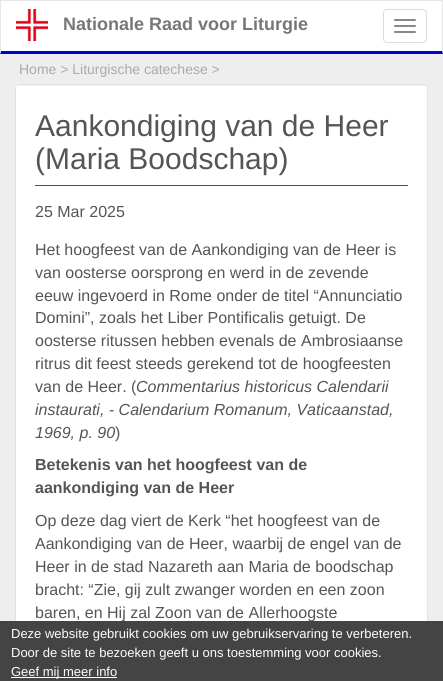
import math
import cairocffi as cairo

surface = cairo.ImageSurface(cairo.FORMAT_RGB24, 443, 681)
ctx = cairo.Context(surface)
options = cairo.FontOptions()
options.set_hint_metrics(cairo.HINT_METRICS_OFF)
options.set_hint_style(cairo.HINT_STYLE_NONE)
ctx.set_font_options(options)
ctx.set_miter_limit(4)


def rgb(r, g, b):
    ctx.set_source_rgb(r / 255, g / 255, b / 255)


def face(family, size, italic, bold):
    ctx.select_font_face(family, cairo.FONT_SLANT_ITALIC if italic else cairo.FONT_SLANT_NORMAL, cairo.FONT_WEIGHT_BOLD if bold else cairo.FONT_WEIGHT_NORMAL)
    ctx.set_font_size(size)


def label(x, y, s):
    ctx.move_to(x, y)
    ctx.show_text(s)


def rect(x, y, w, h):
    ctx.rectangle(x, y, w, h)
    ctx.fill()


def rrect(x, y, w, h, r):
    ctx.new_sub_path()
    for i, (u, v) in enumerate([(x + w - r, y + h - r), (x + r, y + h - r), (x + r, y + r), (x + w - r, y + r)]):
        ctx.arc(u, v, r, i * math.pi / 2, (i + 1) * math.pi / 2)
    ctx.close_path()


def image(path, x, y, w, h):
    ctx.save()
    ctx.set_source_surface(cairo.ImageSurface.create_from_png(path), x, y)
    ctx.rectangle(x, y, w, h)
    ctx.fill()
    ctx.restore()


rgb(255, 255, 255)
ctx.paint()
rgb(231, 231, 231)
rect(0, 0, 443, 1)
ctx.new_path()
ctx.move_to(443, 0)
ctx.line_to(443, 54)
ctx.line_to(442, 51)
ctx.line_to(442, 1)
ctx.close_path()
ctx.fill()
rgb(0, 2, 207)
ctx.new_path()
ctx.move_to(443, 54)
ctx.line_to(0, 54)
ctx.line_to(1, 51)
ctx.line_to(442, 51)
ctx.close_path()
ctx.fill()
rgb(231, 231, 231)
ctx.new_path()
ctx.move_to(0, 54)
ctx.line_to(0, 0)
ctx.line_to(1, 1)
ctx.line_to(1, 51)
ctx.close_path()
ctx.fill()
image('image0.png', 16, 9, 32, 32)
face('Liberation Sans', 18, 0, 1)
rgb(119, 119, 119)
label(63, 30, 'Nationale Raad voor Liturgie')
rrect(383.5, 9.5, 43, 33, 3.5)
rgb(221, 221, 221)
ctx.set_line_width(1)
ctx.stroke()
rgb(136, 136, 136)
rrect(394, 19, 22, 2, 1)
ctx.fill()
rrect(394, 25, 22, 2, 1)
ctx.fill()
rrect(394, 31, 22, 2, 1)
ctx.fill()
rgb(238, 238, 238)
rect(0, 54, 443, 567)
face('Liberation Sans', 14, 0, 0)
rgb(170, 170, 170)
label(19, 74, 'Home > Liturgische catechese >')
rgb(255, 255, 255)
rrect(15, 84, 413, 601, 4)
ctx.fill()
rgb(242, 242, 242)
ctx.new_path()
ctx.move_to(19, 86)
ctx.line_to(424, 86)
ctx.curve_to(426, 86, 427, 87, 427, 89)
ctx.curve_to(427, 87, 426, 85, 424, 85)
ctx.line_to(19, 85)
ctx.curve_to(17, 85, 16, 87, 16, 89)
ctx.curve_to(16, 87, 17, 86, 19, 86)
ctx.close_path()
ctx.fill()
rrect(15.5, 84.5, 412, 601, 3.5)
rgb(227, 227, 227)
ctx.stroke()
rgb(224, 11, 37)
rect(35, 185, 373, 1)
face('Liberation Sans', 30, 0, 0)
rgb(85, 85, 85)
label(35, 136, 'Aankondiging van de Heer')
label(35, 169, '(Maria Boodschap)')
face('Liberation Sans', 16, 0, 0)
label(35, 217, '25 Mar 2025')
label(35, 255, 'Het hoogfeest van de Aankondiging van de Heer is')
label(35, 278, 'van oosterse oorsprong en werd in de zevende')
label(35, 301, 'eeuw ingevoerd in Rome onder de titel “Annunciatio')
label(35, 323, 'Domini”, zoals het Liber Pontificalis getuigt. De')
label(35, 346, 'oosterse ritussen hebben evenals de Ambrosiaanse')
label(35, 369, 'ritrus dit feest steeds gerekend tot de hoogfeesten')
label(35, 392, 'van de Heer. (')
face('Liberation Sans', 16, 1, 0)
label(136, 392, 'Commentarius historicus Calendarii')
label(35, 415, 'instaurati, - Calendarium Romanum, Vaticaanstad,')
label(35, 438, '1969, p. 90')
face('Liberation Sans', 16, 0, 0)
label(115, 438, ')')
face('Liberation Sans', 16, 0, 1)
label(35, 470, 'Betekenis van het hoogfeest van de')
label(35, 493, 'aankondiging van de Heer')
face('Liberation Sans', 16, 0, 0)
label(35, 526, 'Op deze dag viert de Kerk “het hoogfeest van de')
label(35, 549, 'Aankondiging van de Heer, waarbij de engel van de')
label(35, 572, 'Heer in de stad Nazareth aan Maria de boodschap')
label(35, 595, 'bracht: “Zie, gij zult zwanger worden en een zoon')
label(35, 618, 'baren, en Hij zal Zoon van de Allerhoogste')
rgb(68, 68, 68)
rect(0, 621, 443, 60)
face('Liberation Sans', 13, 0, 0)
rgb(255, 255, 255)
label(11, 638, 'Deze website gebruikt cookies om uw gebruikservaring te verbeteren.')
label(11, 657, 'Door de site te bezoeken geeft u ons toestemming voor cookies.')
rect(11, 677, 106, 1)
label(11, 676, 'Geef mij meer info')
surface.write_to_png('render.png')
